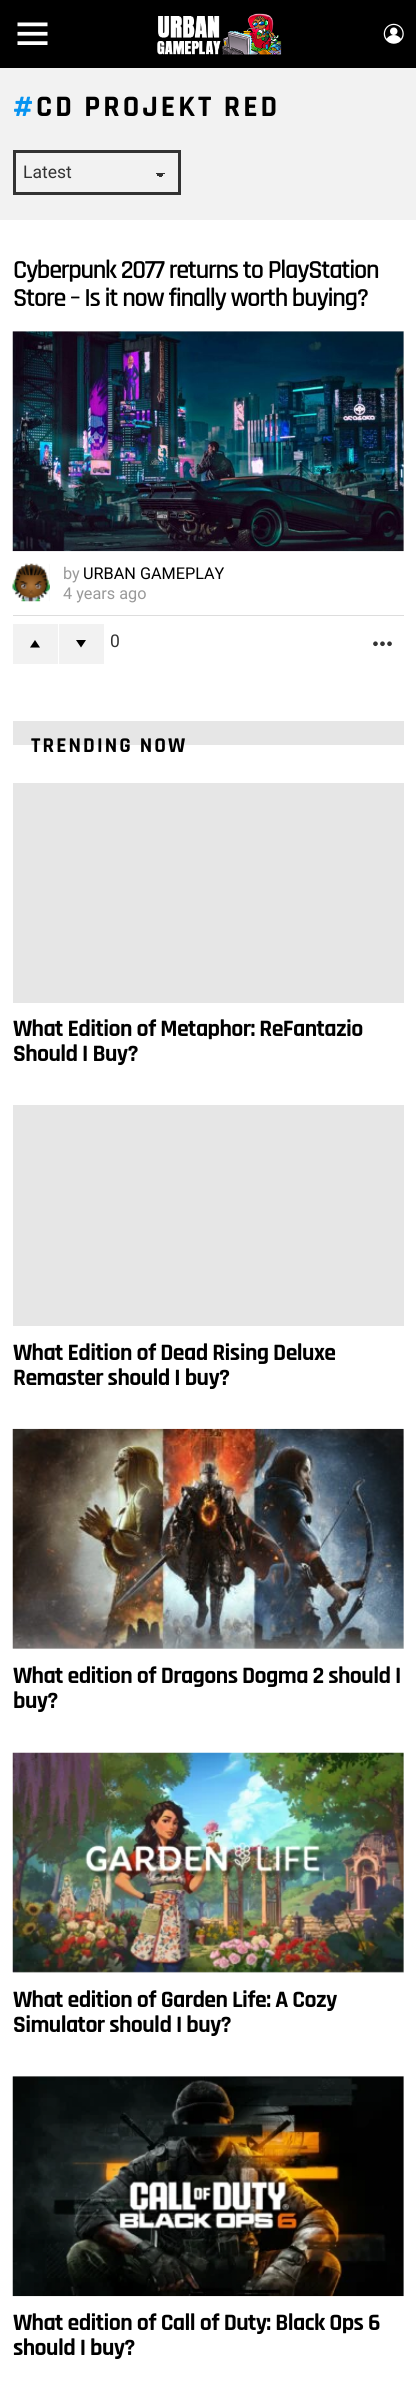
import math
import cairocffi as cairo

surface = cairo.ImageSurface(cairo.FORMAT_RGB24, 416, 2395)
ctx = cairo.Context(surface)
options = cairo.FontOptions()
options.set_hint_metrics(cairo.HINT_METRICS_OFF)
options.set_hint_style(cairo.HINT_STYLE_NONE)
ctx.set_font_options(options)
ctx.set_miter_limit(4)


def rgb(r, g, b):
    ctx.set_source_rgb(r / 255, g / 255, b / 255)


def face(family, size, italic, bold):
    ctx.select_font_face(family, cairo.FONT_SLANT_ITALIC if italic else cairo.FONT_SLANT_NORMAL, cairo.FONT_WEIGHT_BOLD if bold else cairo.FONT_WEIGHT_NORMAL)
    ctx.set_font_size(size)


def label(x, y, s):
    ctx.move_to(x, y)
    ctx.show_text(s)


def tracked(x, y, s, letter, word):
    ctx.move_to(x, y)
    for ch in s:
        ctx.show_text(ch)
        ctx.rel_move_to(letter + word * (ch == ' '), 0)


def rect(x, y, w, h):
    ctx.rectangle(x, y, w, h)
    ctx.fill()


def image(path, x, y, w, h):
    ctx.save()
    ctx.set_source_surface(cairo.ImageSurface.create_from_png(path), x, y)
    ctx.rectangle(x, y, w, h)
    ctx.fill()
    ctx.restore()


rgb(255, 255, 255)
ctx.paint()
rgb(0, 0, 0)
rect(0, 0, 416, 68)
image('image0.png', 17, 22, 31, 23)
image('image1.png', 157, 13, 125, 42)
image('image2.png', 383, 23, 21, 21)
rgb(242, 242, 242)
rect(0, 68, 416, 152)
face('Rajdhani', 30, 0, 1)
rgb(8, 148, 241)
tracked(13, 116, '#', 3, 0)
rgb(0, 0, 0)
tracked(36, 116, 'CD PROJEKT RED', 3, 0)
gradient = cairo.LinearGradient(160, 172, 166, 178)
gradient.add_color_stop_rgba(0.5, 0.2, 0.2, 0.2, 1)
gradient.add_color_stop_rgba(0.5, 0.949, 0.949, 0.949, 1)
ctx.set_source(gradient)
rect(160, 173, 6, 4)
gradient = cairo.LinearGradient(154, 178, 160, 172)
gradient.add_color_stop_rgba(0.5, 0.949, 0.949, 0.949, 1)
gradient.add_color_stop_rgba(0.5, 0.2, 0.2, 0.2, 1)
ctx.set_source(gradient)
rect(154, 173, 6, 4)
ctx.rectangle(14.5, 151.5, 165, 42)
rgb(51, 51, 51)
ctx.set_line_width(3)
ctx.stroke()
face('Roboto', 17.5, 0, 0)
label(23, 178, 'Latest')
face('Rajdhani SemiBold', 26.25, 0, 0)
rgb(0, 0, 0)
tracked(13, 278, 'Cyberpunk 2077 returns to PlayStation', -1.3, 0)
tracked(13, 306, 'Store – Is it now finally worth buying?', -1.3, 0)
rgb(230, 230, 230)
rect(13, 331, 391, 220)
image('image3.png', 12, 331, 392, 221)
face('Roboto', 16.25, 0, 0)
rgb(153, 153, 153)
label(63, 579, 'by')
image('image4.png', 12, 563, 38, 39)
rgb(0, 0, 0)
label(83, 579, 'URBAN GAMEPLAY')
rgb(153, 153, 153)
label(63, 599, '4 years ago')
rgb(221, 221, 221)
rect(13, 615, 391, 1)
rgb(242, 242, 242)
rect(13, 624, 45, 40)
rgb(0, 0, 0)
ctx.new_path()
ctx.move_to(35, 640)
ctx.line_to(30, 647.5)
ctx.line_to(40, 647.5)
ctx.close_path()
ctx.fill()
rgb(242, 242, 242)
rect(59, 624, 45, 40)
rgb(0, 0, 0)
ctx.new_path()
ctx.move_to(81, 647.5)
ctx.line_to(76, 640)
ctx.line_to(86, 640)
ctx.close_path()
ctx.fill()
face('Roboto', 17.5, 0, 0)
rgb(51, 51, 51)
label(110, 647, '0')
image('image5.png', 373, 641, 19, 6)
rgb(230, 230, 230)
rect(13, 721, 391, 24)
face('Rajdhani', 21.25, 0, 1)
rgb(0, 0, 0)
tracked(31, 752, 'TRENDING NOW', 2.1, 0)
rgb(230, 230, 230)
rect(13, 783, 391, 220)
face('Rajdhani', 23.75, 0, 1)
rgb(0, 0, 0)
tracked(13, 1036, 'What Edition of Metaphor: ReFantazio', -0.6, 0)
tracked(13, 1061, 'Should I Buy?', -0.6, 0)
rgb(230, 230, 230)
rect(13, 1105, 391, 221)
rgb(0, 0, 0)
tracked(13, 1360, 'What Edition of Dead Rising Deluxe', -0.6, 0)
tracked(13, 1385, 'Remaster should I buy?', -0.6, 0)
rgb(230, 230, 230)
rect(13, 1429, 391, 220)
image('image6.png', 12, 1428, 392, 221)
rgb(0, 0, 0)
tracked(13, 1683, 'What edition of Dragons Dogma 2 should I', -0.6, 0)
tracked(13, 1708, 'buy?', -0.6, 0)
rgb(230, 230, 230)
rect(13, 1753, 391, 220)
image('image7.png', 12, 1752, 392, 221)
rgb(0, 0, 0)
tracked(13, 2007, 'What edition of Garden Life: A Cozy', -0.6, 0)
tracked(13, 2032, 'Simulator should I buy?', -0.6, 0)
rgb(230, 230, 230)
rect(13, 2076, 391, 220)
image('image8.png', 12, 2076, 392, 221)
rgb(0, 0, 0)
tracked(13, 2330, 'What edition of Call of Duty: Black Ops 6', -0.6, 0)
tracked(13, 2355, 'should I buy?', -0.6, 0)
surface.write_to_png('render.png')
